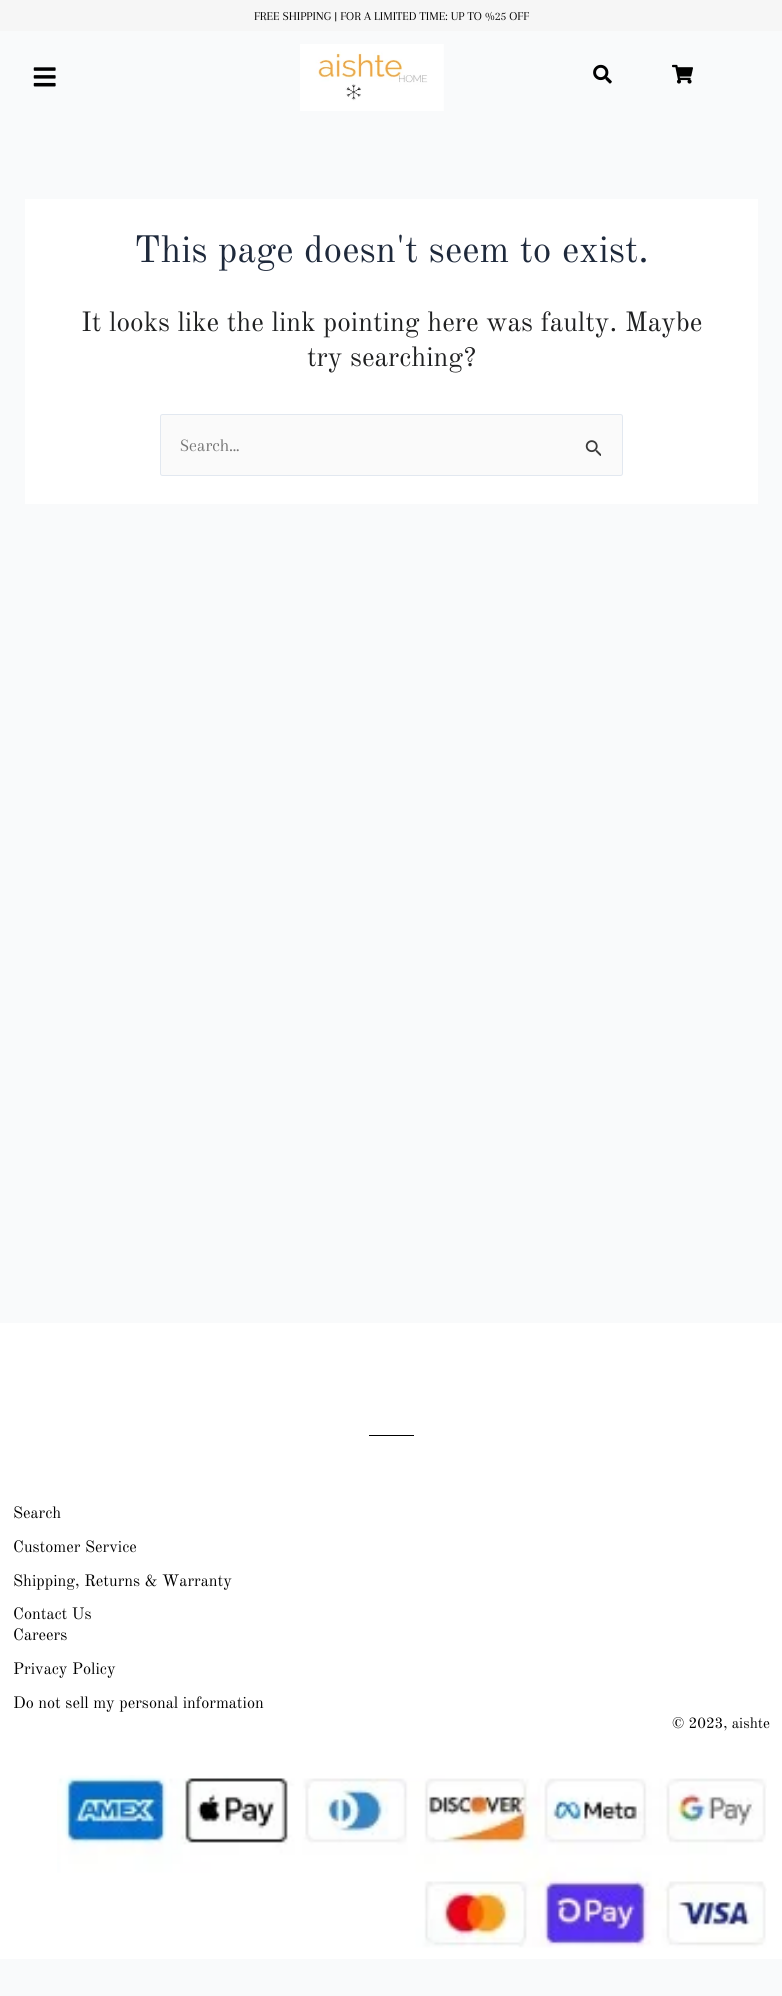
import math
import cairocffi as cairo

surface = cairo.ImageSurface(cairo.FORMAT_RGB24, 782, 1996)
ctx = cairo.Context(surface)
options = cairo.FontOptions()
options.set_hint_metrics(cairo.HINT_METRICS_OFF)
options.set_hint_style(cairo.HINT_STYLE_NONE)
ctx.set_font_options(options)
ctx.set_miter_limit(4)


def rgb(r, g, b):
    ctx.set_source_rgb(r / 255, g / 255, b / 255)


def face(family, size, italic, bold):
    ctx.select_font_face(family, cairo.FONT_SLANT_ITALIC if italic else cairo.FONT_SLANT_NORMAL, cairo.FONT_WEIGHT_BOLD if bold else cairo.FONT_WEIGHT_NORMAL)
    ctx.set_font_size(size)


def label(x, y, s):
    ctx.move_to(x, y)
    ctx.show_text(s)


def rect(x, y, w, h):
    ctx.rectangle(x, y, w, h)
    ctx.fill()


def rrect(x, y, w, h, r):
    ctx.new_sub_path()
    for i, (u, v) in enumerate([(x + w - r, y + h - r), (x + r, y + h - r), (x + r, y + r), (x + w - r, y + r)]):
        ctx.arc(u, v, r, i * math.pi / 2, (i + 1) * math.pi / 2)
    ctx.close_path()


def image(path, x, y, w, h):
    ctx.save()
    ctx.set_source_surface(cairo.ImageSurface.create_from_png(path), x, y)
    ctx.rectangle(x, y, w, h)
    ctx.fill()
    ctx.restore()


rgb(249, 250, 251)
ctx.paint()
rgb(246, 246, 246)
rect(0, 0, 782, 31)
face('Arapey', 12.5, 0, 0)
rgb(0, 0, 0)
label(254, 20, 'FREE SHIPPING | FOR A LIMITED TIME: UP TO %25 OFF')
image('image0.png', 33, 67, 23, 20)
image('image1.png', 300, 44, 144, 67)
image('image2.png', 593, 64, 19, 20)
image('image3.png', 672, 64, 21, 20)
rgb(255, 255, 255)
rect(25, 199, 733, 305)
face('Old Standard TT', 37.5, 0, 0)
rgb(30, 41, 59)
label(134, 262, 'This page doesn\'t seem to exist.')
face('Old Standard TT', 27.4, 0, 0)
rgb(31, 32, 33)
label(81, 331, 'It looks like the link pointing here was faulty. Maybe')
label(307, 366, 'try searching?')
rgb(250, 250, 250)
rrect(160.5, 414.5, 462, 61, 2)
ctx.fill_preserve()
rgb(226, 232, 240)
ctx.set_line_width(1)
ctx.stroke()
face('Arapey', 18, 0, 0)
rgb(117, 117, 117)
label(180, 451, 'Search...')
image('image4.png', 585, 440, 16, 16)
rgb(255, 255, 255)
rect(0, 1323, 782, 636)
rgb(0, 0, 0)
rect(369, 1435, 45, 1)
face('Old Standard TT', 16.25, 0, 0)
label(13, 1518, 'Search')
label(13, 1552, 'Customer Service')
label(13, 1586, 'Shipping, Returns & Warranty')
label(13, 1619, 'Contact Us')
label(13, 1640, 'Careers')
label(13, 1674, 'Privacy Policy')
label(13, 1708, 'Do not sell my personal information')
face('Old Standard TT', 15, 0, 0)
label(672, 1728, '© 2023, aishte')
image('image5.png', 57, 1775, 710, 173)
surface.write_to_png('render.png')
